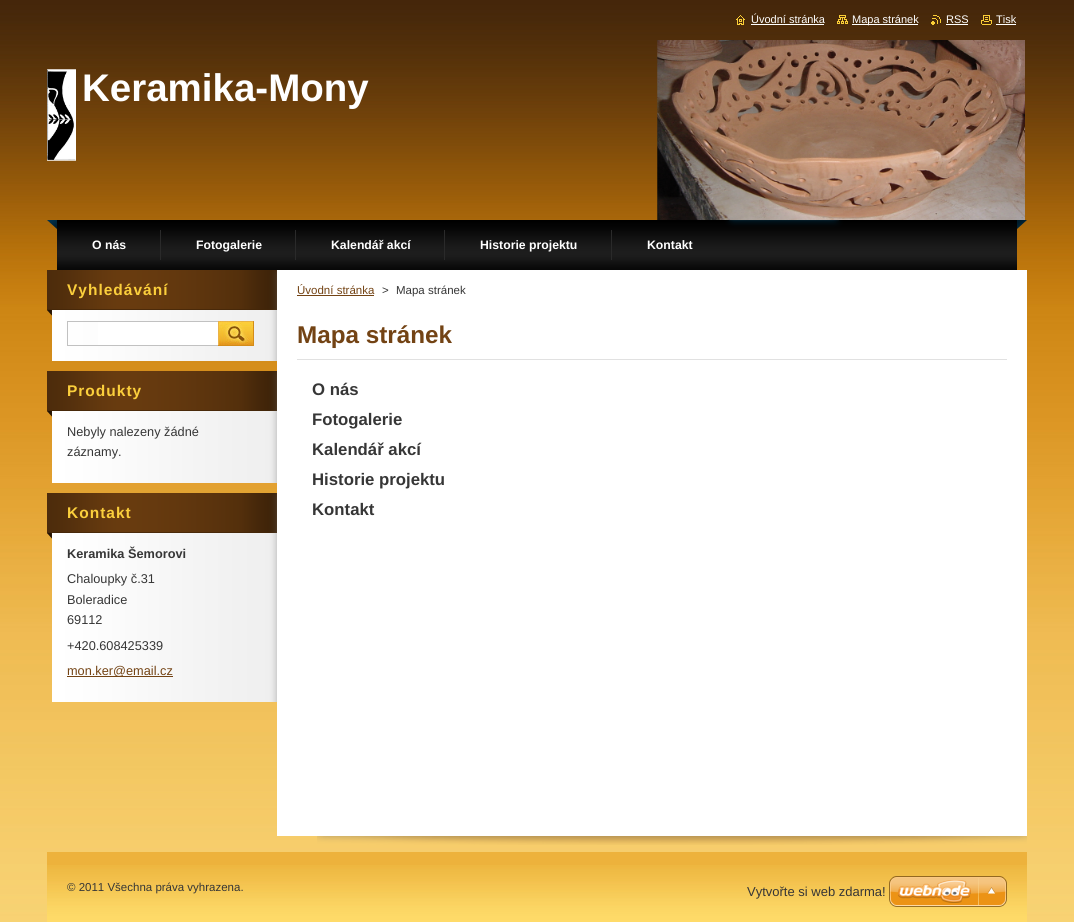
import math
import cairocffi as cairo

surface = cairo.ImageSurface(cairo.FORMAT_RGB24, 1074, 922)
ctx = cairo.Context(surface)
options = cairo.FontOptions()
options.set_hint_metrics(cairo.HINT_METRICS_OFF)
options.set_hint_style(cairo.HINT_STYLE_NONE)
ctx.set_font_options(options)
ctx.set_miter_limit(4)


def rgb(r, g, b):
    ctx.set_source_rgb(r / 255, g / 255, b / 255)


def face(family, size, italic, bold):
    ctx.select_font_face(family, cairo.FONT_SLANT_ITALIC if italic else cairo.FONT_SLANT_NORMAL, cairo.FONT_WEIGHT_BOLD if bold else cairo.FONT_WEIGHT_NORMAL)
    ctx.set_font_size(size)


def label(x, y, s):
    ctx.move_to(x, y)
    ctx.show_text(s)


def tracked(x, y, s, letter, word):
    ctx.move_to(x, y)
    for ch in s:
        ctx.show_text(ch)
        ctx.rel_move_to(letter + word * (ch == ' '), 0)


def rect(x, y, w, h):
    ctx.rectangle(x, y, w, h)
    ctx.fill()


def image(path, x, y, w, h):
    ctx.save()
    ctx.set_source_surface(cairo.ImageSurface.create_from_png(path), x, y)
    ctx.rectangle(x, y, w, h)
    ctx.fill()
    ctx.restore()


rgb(255, 255, 255)
ctx.paint()
image('image0.png', 0, 0, 1074, 922)
image('image1.png', 736, 15, 9, 10)
face('Liberation Sans', 11, 0, 0)
rgb(255, 255, 255)
label(751, 23, 'Úvodní stránka')
rect(751, 24, 73, 1)
image('image2.png', 837, 15, 11, 9)
rect(852, 24, 66, 1)
label(852, 23, 'Mapa stránek')
image('image3.png', 931, 15, 10, 10)
label(946, 23, 'RSS')
rect(946, 24, 22, 1)
image('image4.png', 981, 15, 11, 10)
label(996, 23, 'Tisk')
rect(996, 24, 20, 1)
image('image5.png', 47, 40, 978, 180)
face('Liberation Sans', 38.5, 0, 1)
label(82, 101, 'Keramika-Mony')
image('image6.png', 47, 220, 980, 50)
rgb(42, 42, 42)
rect(160, 230, 1, 30)
face('Liberation Sans', 12.25, 0, 1)
rgb(255, 255, 255)
label(92, 249, 'O nás')
rgb(42, 42, 42)
rect(295, 230, 1, 30)
rgb(255, 255, 255)
label(196, 249, 'Fotogalerie')
rgb(42, 42, 42)
rect(444, 230, 1, 30)
rgb(255, 255, 255)
label(331, 249, 'Kalendář akcí')
rgb(42, 42, 42)
rect(611, 230, 1, 30)
rgb(255, 255, 255)
label(480, 249, 'Historie projektu')
label(647, 249, 'Kontakt')
image('image7.png', 52, 316, 225, 45)
image('image8.png', 47, 270, 230, 46)
face('Liberation Sans', 15.5, 0, 1)
rgb(251, 207, 60)
tracked(67, 295, 'Vyhledávání', 1, 0)
rgb(255, 255, 255)
rect(98, 322, 120, 23)
ctx.rectangle(67.5, 321.5, 151, 24)
rgb(193, 193, 193)
ctx.set_line_width(1)
ctx.stroke()
image('image9.png', 218, 321, 36, 25)
image('image10.png', 52, 417, 225, 66)
image('image11.png', 47, 371, 230, 46)
rgb(251, 207, 60)
tracked(67, 396, 'Produkty', 1, 0)
face('Liberation Sans', 12.75, 0, 0)
rgb(54, 54, 54)
label(67, 436, 'Nebyly nalezeny žádné')
label(67, 456, 'záznamy.')
image('image12.png', 52, 539, 225, 163)
image('image13.png', 47, 493, 230, 46)
face('Liberation Sans', 15.5, 0, 1)
rgb(251, 207, 60)
tracked(67, 518, 'Kontakt', 1, 0)
face('Liberation Sans', 12.75, 0, 1)
rgb(54, 54, 54)
label(67, 558, 'Keramika Šemorovi')
face('Liberation Sans', 12.75, 0, 0)
label(67, 583, 'Chaloupky č.31')
label(67, 604, 'Boleradice')
label(67, 624, '69112')
label(67, 650, '+420.608425339')
rgb(115, 67, 20)
rect(67, 676, 106, 1)
label(67, 675, 'mon.ker@email.cz')
image('image14.png', 317, 836, 710, 9)
rgb(255, 255, 255)
rect(277, 270, 750, 566)
face('Liberation Sans', 11.5, 0, 0)
rgb(115, 67, 20)
label(297, 294, 'Úvodní stránka')
rect(297, 295, 77, 1)
rgb(54, 54, 54)
label(382, 294, '>')
label(396, 294, 'Mapa stránek')
rgb(225, 225, 225)
rect(297, 359, 710, 1)
face('Liberation Sans', 24.25, 0, 1)
rgb(115, 67, 20)
label(297, 343, 'Mapa stránek')
face('Liberation Sans', 16.75, 0, 1)
rgb(54, 54, 54)
label(312, 395, 'O nás')
label(312, 425, 'Fotogalerie')
label(312, 455, 'Kalendář akcí')
label(312, 485, 'Historie projektu')
label(312, 515, 'Kontakt')
rgb(237, 178, 60)
rect(47, 852, 980, 13)
image('image15.png', 47, 865, 980, 57)
face('Liberation Sans', 11.5, 0, 0)
rgb(54, 54, 54)
label(67, 891, '© 2011 Všechna práva vyhrazena.')
face('Liberation Sans', 13, 0, 0)
label(747, 896, 'Vytvořte si web zdarma!')
image('image16.png', 889, 876, 118, 31)
surface.write_to_png('render.png')
